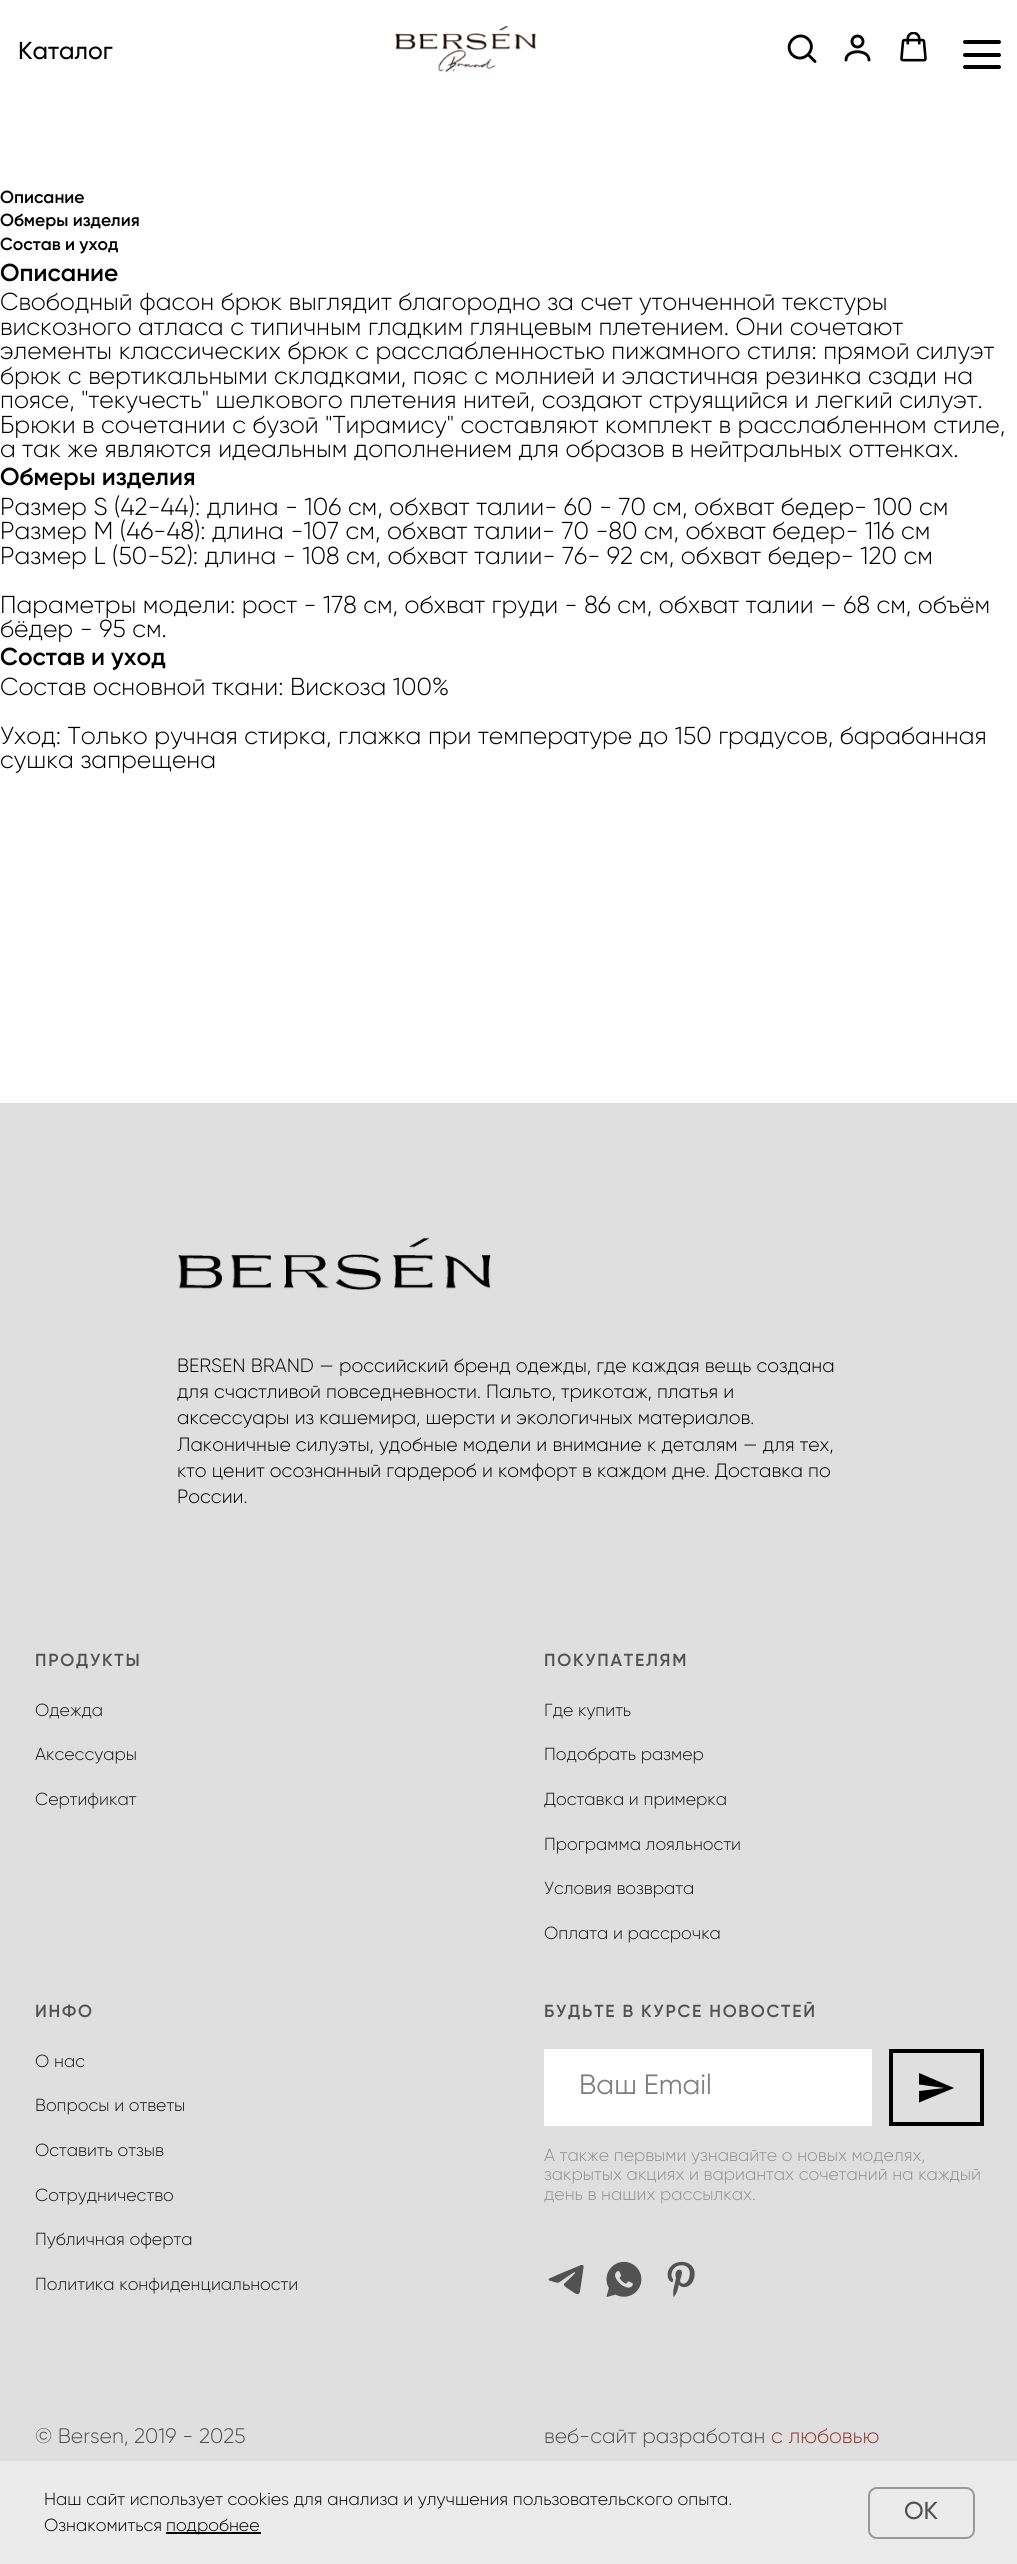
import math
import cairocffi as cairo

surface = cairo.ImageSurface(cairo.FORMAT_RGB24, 1017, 2564)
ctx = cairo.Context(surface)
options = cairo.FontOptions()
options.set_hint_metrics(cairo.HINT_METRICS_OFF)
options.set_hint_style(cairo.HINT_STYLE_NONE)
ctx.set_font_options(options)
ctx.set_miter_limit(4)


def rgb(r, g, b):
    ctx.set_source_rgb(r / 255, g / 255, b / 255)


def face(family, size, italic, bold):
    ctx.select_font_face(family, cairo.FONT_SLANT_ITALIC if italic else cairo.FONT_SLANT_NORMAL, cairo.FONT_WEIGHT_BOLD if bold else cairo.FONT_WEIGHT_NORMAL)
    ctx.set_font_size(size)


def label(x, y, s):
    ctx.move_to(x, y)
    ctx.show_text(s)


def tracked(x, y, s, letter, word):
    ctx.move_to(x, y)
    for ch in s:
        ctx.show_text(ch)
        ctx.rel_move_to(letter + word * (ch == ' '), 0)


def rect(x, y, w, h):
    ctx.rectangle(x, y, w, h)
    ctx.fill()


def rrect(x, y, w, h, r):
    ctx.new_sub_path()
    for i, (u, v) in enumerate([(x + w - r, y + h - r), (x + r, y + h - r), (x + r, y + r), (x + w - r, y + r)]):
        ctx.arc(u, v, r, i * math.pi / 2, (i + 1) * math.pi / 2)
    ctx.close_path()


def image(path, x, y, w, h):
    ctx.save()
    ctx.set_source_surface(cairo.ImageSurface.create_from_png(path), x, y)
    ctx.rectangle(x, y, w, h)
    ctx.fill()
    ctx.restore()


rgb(255, 255, 255)
ctx.paint()
face('Gilroy Medium', 24.5, 0, 0)
rgb(0, 0, 0)
label(18, 59, 'Каталог')
image('image0.png', 395, 26, 141, 47)
ctx.new_path()
ctx.move_to(808.5, 39.5)
ctx.curve_to(818, 50, 802, 65, 792, 54.5)
ctx.curve_to(782.5, 44, 798.5, 29, 808.5, 39.5)
ctx.close_path()
ctx.set_line_width(2.9)
ctx.stroke()
ctx.new_path()
ctx.move_to(809.5, 56)
ctx.line_to(815, 61.5)
ctx.set_line_cap(cairo.LINE_CAP_ROUND)
ctx.stroke()
ctx.arc(857.5, 41.5, 5.5, 0, 2 * math.pi)
ctx.set_line_cap(cairo.LINE_CAP_BUTT)
ctx.stroke()
ctx.new_path()
ctx.move_to(869, 60)
ctx.curve_to(869, 49, 846, 49, 846, 60)
ctx.set_line_cap(cairo.LINE_CAP_ROUND)
ctx.stroke()
image('image1.png', 900, 32, 27, 30)
rrect(963, 40, 38, 4, 2)
ctx.fill()
rrect(963, 53, 38, 4, 2)
ctx.fill()
rrect(963, 65, 38, 4, 2)
ctx.fill()
face('Gilroy SemiBold', 17.5, 0, 0)
label(0, 203, 'Описание')
label(0, 226, 'Обмеры изделия')
label(0, 250, 'Состав и уход')
face('Gilroy SemiBold', 24.5, 0, 0)
label(0, 281, 'Описание')
face('Gilroy Light', 24.5, 0, 0)
label(0, 310, 'Свободный фасон брюк выглядит благородно за счет утонченной текстуры')
label(0, 335, 'вискозного атласа с типичным гладким глянцевым плетением. Они сочетают')
label(0, 359, 'элементы классических брюк с расслабленностью пижамного стиля: прямой силуэт')
label(0, 384, 'брюк с вертикальными складками, пояс с молнией и эластичная резинка сзади на')
label(0, 408, 'поясе, "текучесть" шелкового плетения нитей, создают струящийся и легкий силуэт.')
label(0, 433, 'Брюки в сочетании с бузой "Тирамису" составляют комплект в расслабленном стиле,')
label(0, 457, 'а так же являются идеальным дополнением для образов в нейтральных оттенках.')
face('Gilroy SemiBold', 24.5, 0, 0)
label(0, 485, 'Обмеры изделия')
face('Gilroy Light', 24.5, 0, 0)
label(0, 515, 'Размер S (42-44): длина - 106 см, обхват талии- 60 - 70 см, обхват бедер- 100 см')
label(0, 539, 'Размер М (46-48): длина -107 см, обхват талии- 70 -80 см, обхват бедер- 116 см')
label(0, 564, 'Размер L (50-52): длина - 108 см, обхват талии- 76- 92 см, обхват бедер- 120 см')
label(0, 613, 'Параметры модели: рост - 178 см, обхват груди - 86 см, обхват талии – 68 см, объём')
label(0, 637, 'бёдер - 95 см.')
face('Gilroy SemiBold', 24.5, 0, 0)
label(0, 665, 'Состав и уход')
face('Gilroy Light', 24.5, 0, 0)
label(0, 695, 'Состав основной ткани: Вискоза 100%')
label(0, 744, 'Уход: Только ручная стирка, глажка при температуре до 150 градусов, барабанная')
label(0, 768, 'сушка запрещена')
rgb(223, 223, 223)
rect(0, 1103, 1017, 1358)
image('image2.png', 178, 1237, 313, 53)
face('Gilroy Light', 19.25, 0, 0)
rgb(0, 0, 0)
label(177, 1372, 'BERSEN BRAND — российский бренд одежды, где каждая вещь создана')
label(177, 1398, 'для счастливой повседневности. Пальто, трикотаж, платья и')
label(177, 1424, 'аксессуары из кашемира, шерсти и экологичных материалов.')
label(177, 1451, 'Лаконичные силуэты, удобные модели и внимание к деталям — для тех,')
label(177, 1477, 'кто ценит осознанный гардероб и комфорт в каждом дне. Доставка по')
label(177, 1503, 'России.')
face('Gilroy SemiBold', 17.5, 0, 0)
rgb(82, 82, 82)
tracked(35, 1666, 'ПРОДУКТЫ', 1.75, 0)
face('Gilroy Light', 17.5, 0, 0)
rgb(22, 22, 22)
label(35, 1716, 'Одежда')
label(35, 1760, 'Аксессуары')
label(35, 1805, 'Сертификат')
face('Gilroy SemiBold', 17.5, 0, 0)
rgb(82, 82, 82)
tracked(544, 1666, 'ПОКУПАТЕЛЯМ', 1.75, 0)
face('Gilroy Light', 17.5, 0, 0)
rgb(22, 22, 22)
label(544, 1716, 'Где купить')
label(544, 1760, 'Подобрать размер')
label(544, 1805, 'Доставка и примерка')
label(544, 1850, 'Программа лояльности')
label(544, 1894, 'Условия возврата')
label(544, 1939, 'Оплата и рассрочка')
face('Gilroy SemiBold', 17.5, 0, 0)
rgb(82, 82, 82)
tracked(35, 2017, 'ИНФО', 1.75, 0)
face('Gilroy Light', 17.5, 0, 0)
rgb(22, 22, 22)
label(35, 2067, 'О нас')
label(35, 2111, 'Вопросы и ответы')
label(35, 2156, 'Оставить отзыв')
label(35, 2201, 'Сотрудничество')
label(35, 2245, 'Публичная оферта')
label(35, 2290, 'Политика конфиденциальности')
face('Gilroy SemiBold', 17.5, 0, 0)
rgb(82, 82, 82)
tracked(544, 2017, 'БУДЬТЕ В КУРСЕ НОВОСТЕЙ', 1.75, 0)
rgb(255, 255, 255)
rect(544, 2049, 328, 77)
face('Gilroy', 28, 0, 0)
rgb(128, 128, 128)
label(579, 2094, 'Ваш Email')
ctx.rectangle(891, 2051, 91, 73)
rgb(0, 0, 0)
ctx.set_line_width(4)
ctx.set_line_cap(cairo.LINE_CAP_BUTT)
ctx.stroke()
ctx.new_path()
ctx.move_to(919, 2102.5)
ctx.line_to(954, 2088)
ctx.line_to(919, 2073)
ctx.line_to(919, 2084.5)
ctx.line_to(944, 2088)
ctx.line_to(919, 2091)
ctx.close_path()
ctx.fill()
face('Gilroy Light', 17.5, 0, 0)
rgb(144, 144, 144)
label(544, 2161, 'А также первыми узнавайте о новых моделях,')
label(544, 2180, 'закрытых акциях и вариантах сочетаний на каждый')
label(544, 2200, 'день в наших рассылках.')
image('image3.png', 548, 2265, 36, 30)
image('image4.png', 606, 2261, 36, 36)
image('image5.png', 667, 2261, 28, 36)
face('Gilroy Light', 21, 0, 0)
rgb(82, 82, 82)
label(35, 2443, '© Bersen, 2019 - 2025')
label(544, 2443, 'веб-сайт разработан')
rgb(152, 55, 55)
label(771, 2443, 'с любовью')
rgb(235, 235, 235)
rect(0, 2461, 1017, 103)
face('Gilroy Light', 17.5, 0, 0)
rgb(0, 0, 0)
label(44, 2505, 'Наш сайт использует cookies для анализа и улучшения пользовательского опыта.')
label(44, 2531, 'Ознакомиться')
rect(166, 2532, 95, 2)
label(166, 2531, 'подробнее')
rrect(869, 2488, 105, 50, 8)
rgb(153, 153, 153)
ctx.set_line_width(2)
ctx.stroke()
ctx.save()
ctx.rectangle(905, 2496, 33, 35)
ctx.clip()
face('Gilroy Medium', 24.5, 0, 0)
rgb(82, 82, 82)
label(904, 2519, 'OK')
ctx.restore()
surface.write_to_png('render.png')
